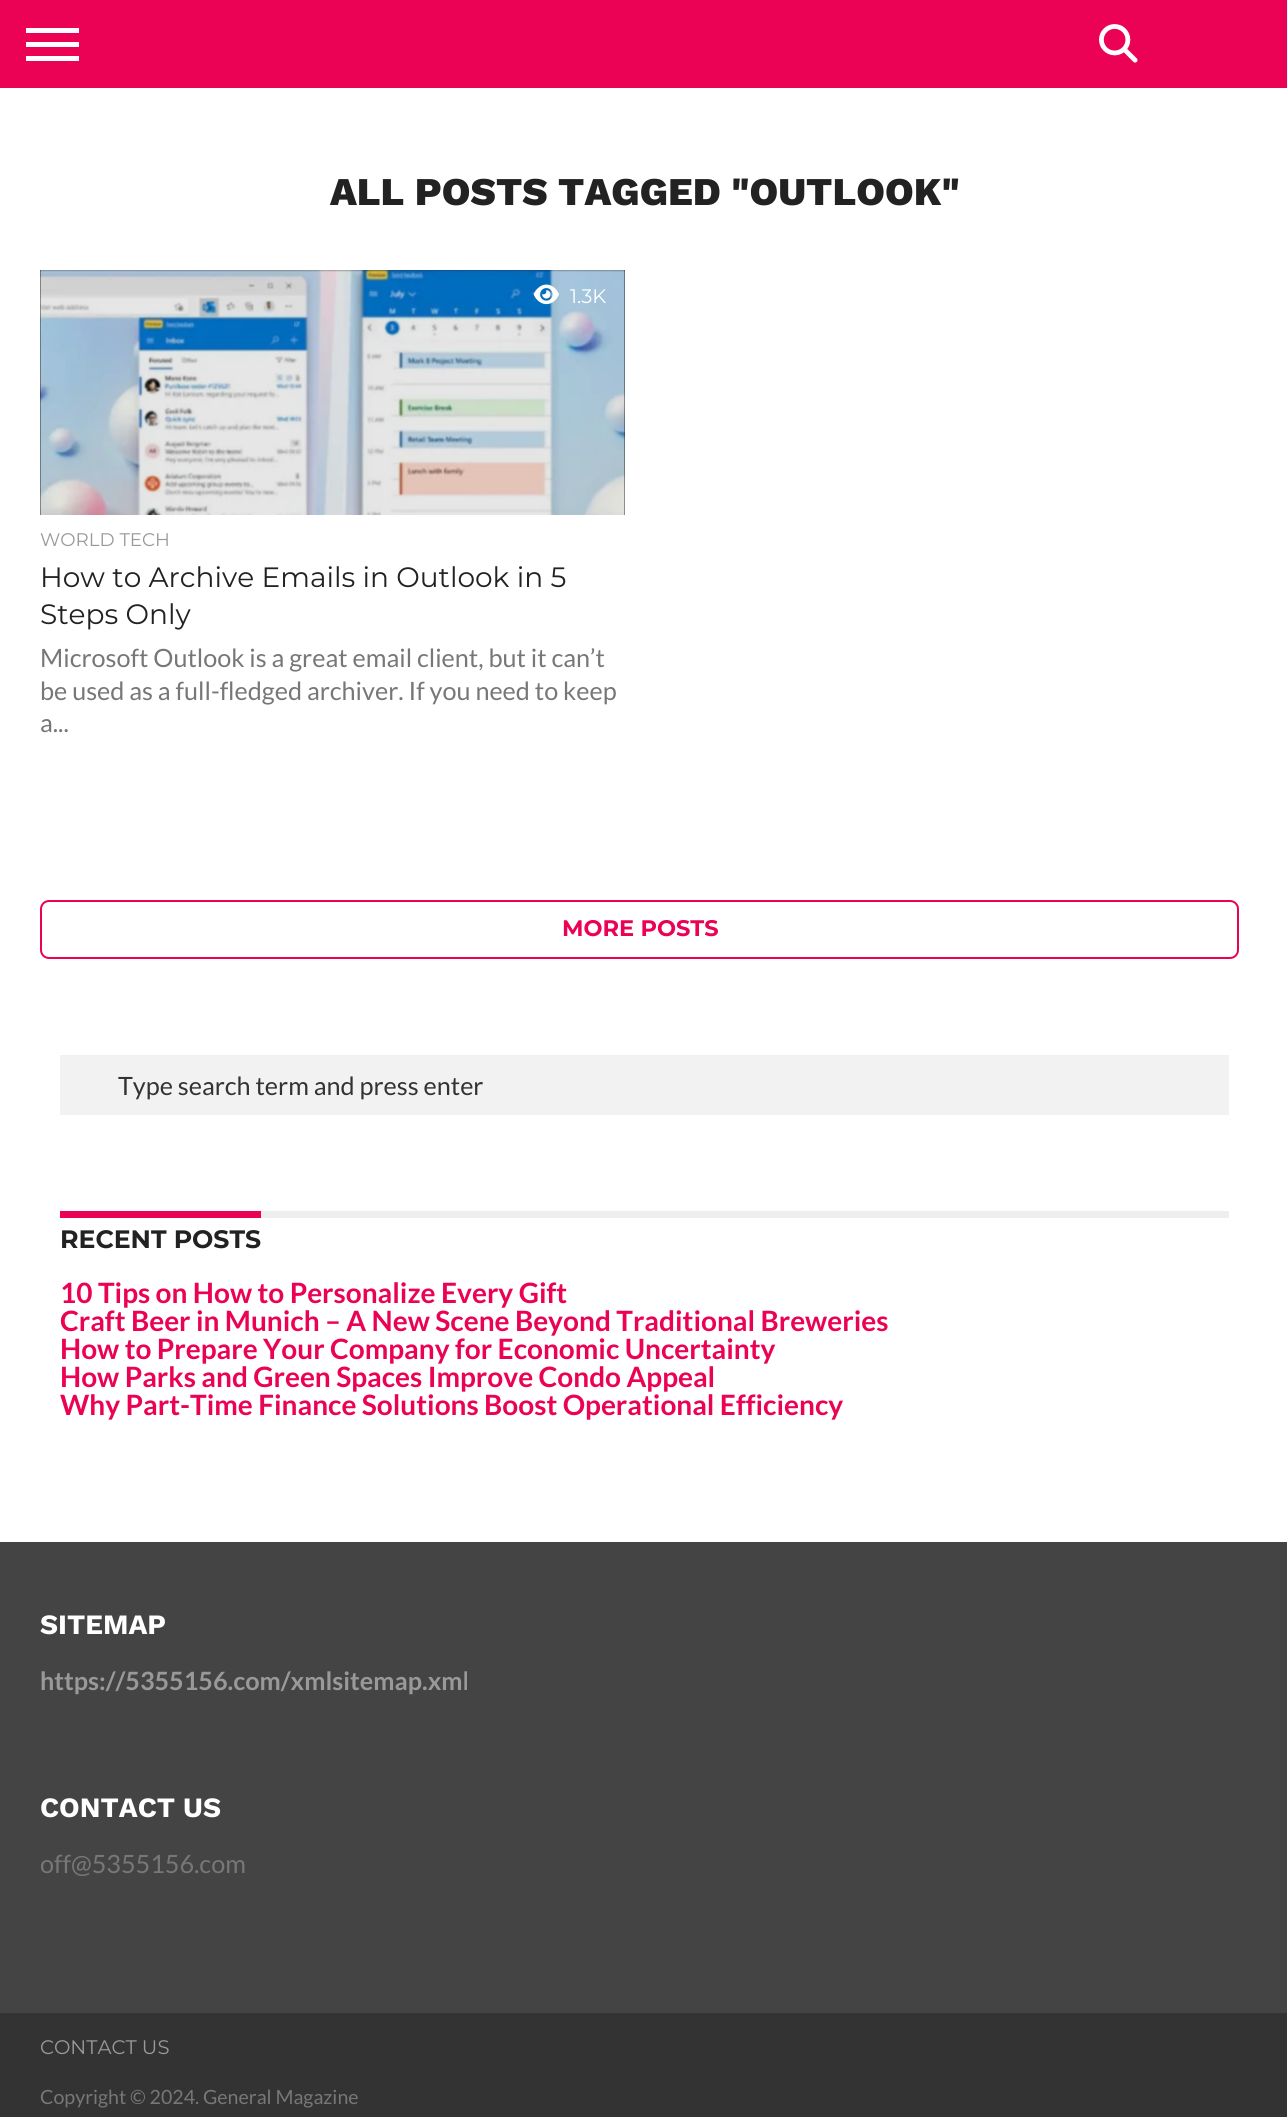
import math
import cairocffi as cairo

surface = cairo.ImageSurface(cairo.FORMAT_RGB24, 1287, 2117)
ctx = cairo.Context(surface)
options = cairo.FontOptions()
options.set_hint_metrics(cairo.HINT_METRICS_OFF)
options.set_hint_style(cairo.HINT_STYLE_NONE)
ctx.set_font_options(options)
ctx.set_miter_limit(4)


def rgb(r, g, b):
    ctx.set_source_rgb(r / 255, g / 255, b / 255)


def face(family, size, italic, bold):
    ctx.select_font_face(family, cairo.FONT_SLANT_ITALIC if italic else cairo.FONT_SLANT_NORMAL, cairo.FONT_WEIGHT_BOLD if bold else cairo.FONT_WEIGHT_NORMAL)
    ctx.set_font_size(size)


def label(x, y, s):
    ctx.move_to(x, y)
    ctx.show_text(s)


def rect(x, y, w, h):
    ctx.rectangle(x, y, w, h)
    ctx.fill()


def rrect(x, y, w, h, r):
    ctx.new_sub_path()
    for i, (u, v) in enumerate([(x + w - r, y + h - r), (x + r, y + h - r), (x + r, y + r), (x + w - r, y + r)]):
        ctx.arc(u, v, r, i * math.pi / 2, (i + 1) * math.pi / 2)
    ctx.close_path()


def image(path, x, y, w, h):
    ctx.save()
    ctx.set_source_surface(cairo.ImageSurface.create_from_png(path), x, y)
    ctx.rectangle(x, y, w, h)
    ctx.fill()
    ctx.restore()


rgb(255, 255, 255)
ctx.paint()
rgb(235, 2, 84)
rect(0, 0, 1287, 88)
rgb(255, 255, 255)
rect(26, 28, 53, 5)
rect(26, 42, 53, 5)
rect(26, 56, 53, 5)
image('image0.png', 1099, 24, 39, 39)
face('Work Sans ExtraBold', 39.25, 0, 0)
rgb(34, 34, 34)
label(330, 205, 'ALL POSTS TAGGED "OUTLOOK"')
rgb(0, 0, 0)
rect(40, 270, 585, 245)
image('image1.png', 40, 270, 585, 245)
image('image2.png', 533, 284, 26, 21)
face('Montserrat', 19.6, 0, 0)
rgb(255, 255, 255)
label(570, 303, '1.3K')
face('Montserrat', 18.25, 0, 0)
rgb(153, 153, 153)
label(40, 546, 'WORLD TECH')
face('Montserrat', 28, 0, 0)
rgb(34, 34, 34)
label(40, 587, 'How to Archive Emails in Outlook in 5')
label(40, 624, 'Steps Only')
face('Lato', 25.2, 0, 0)
rgb(119, 119, 119)
label(40, 667, 'Microsoft Outlook is a great email client, but it can’t')
label(40, 700, 'be used as a full-fledged archiver. If you need to keep')
label(40, 732, 'a...')
rrect(41, 901, 1197, 57, 8)
rgb(235, 2, 84)
ctx.stroke()
face('Montserrat', 22.5, 0, 1)
label(562, 936, 'MORE POSTS')
rgb(242, 242, 242)
rect(60, 1055, 1169, 60)
face('Lato', 25.2, 0, 0)
rgb(51, 51, 51)
label(118, 1095, 'Type search term and press enter')
rgb(238, 238, 238)
rect(261, 1211, 968, 7)
rgb(235, 2, 84)
rect(60, 1211, 201, 7)
face('Montserrat', 25.2, 0, 1)
rgb(34, 34, 34)
label(60, 1248, 'RECENT POSTS')
face('Lato', 28, 0, 1)
rgb(235, 2, 84)
label(60, 1303, '10 Tips on How to Personalize Every Gift')
label(60, 1331, 'Craft Beer in Munich – A New Scene Beyond Traditional Breweries')
label(60, 1359, 'How to Prepare Your Company for Economic Uncertainty')
label(60, 1387, 'How Parks and Green Spaces Improve Condo Appeal')
label(60, 1415, 'Why Part-Time Finance Solutions Boost Operational Efficiency')
rgb(68, 68, 68)
rect(0, 1542, 1287, 471)
face('Work Sans', 28, 0, 1)
rgb(255, 255, 255)
label(40, 1634, 'SITEMAP')
face('Lato', 25.2, 0, 1)
rgb(153, 153, 153)
label(40, 1690, 'https://5355156.com/xmlsitemap.xml')
face('Work Sans', 28, 0, 1)
rgb(255, 255, 255)
label(40, 1817, 'CONTACT US')
face('Lato', 25.2, 0, 0)
rgb(119, 119, 119)
label(40, 1873, 'off@5355156.com')
rgb(51, 51, 51)
rect(0, 2013, 1287, 104)
face('Montserrat', 19.6, 0, 0)
rgb(153, 153, 153)
label(40, 2054, 'CONTACT US')
face('Lato', 19.6, 0, 0)
rgb(119, 119, 119)
label(40, 2104, 'Copyright © 2024. General Magazine')
surface.write_to_png('render.png')
